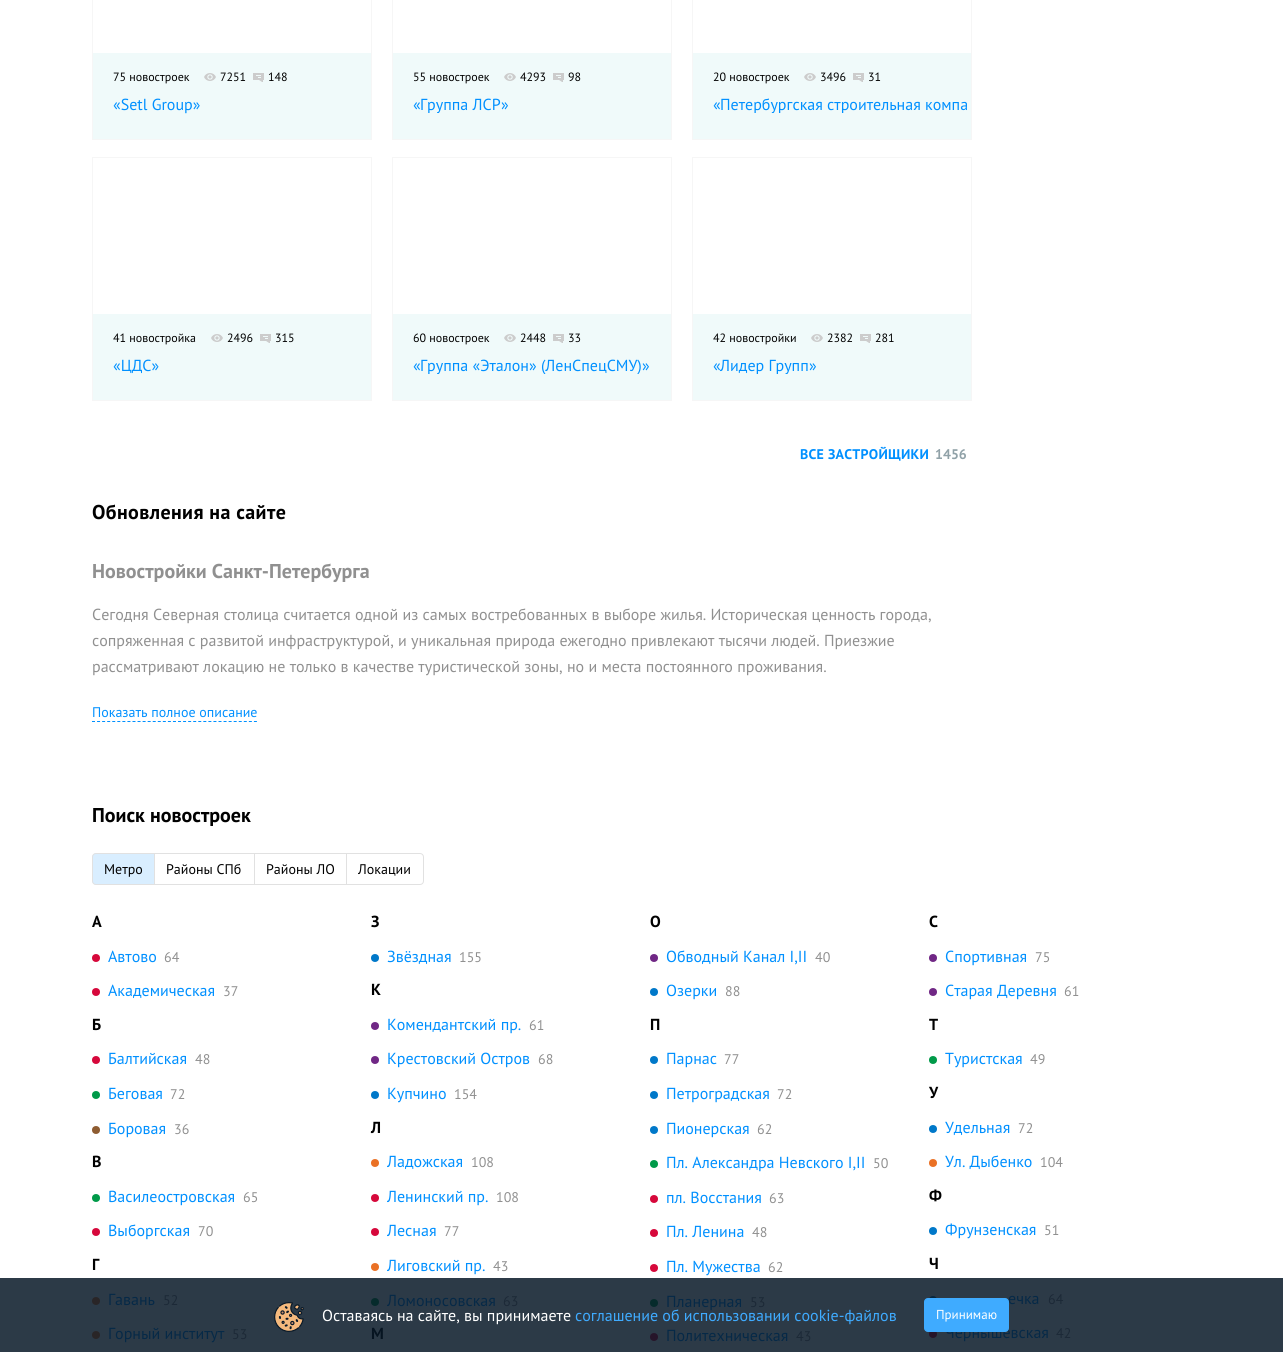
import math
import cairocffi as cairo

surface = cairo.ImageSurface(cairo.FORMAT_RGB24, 1283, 1352)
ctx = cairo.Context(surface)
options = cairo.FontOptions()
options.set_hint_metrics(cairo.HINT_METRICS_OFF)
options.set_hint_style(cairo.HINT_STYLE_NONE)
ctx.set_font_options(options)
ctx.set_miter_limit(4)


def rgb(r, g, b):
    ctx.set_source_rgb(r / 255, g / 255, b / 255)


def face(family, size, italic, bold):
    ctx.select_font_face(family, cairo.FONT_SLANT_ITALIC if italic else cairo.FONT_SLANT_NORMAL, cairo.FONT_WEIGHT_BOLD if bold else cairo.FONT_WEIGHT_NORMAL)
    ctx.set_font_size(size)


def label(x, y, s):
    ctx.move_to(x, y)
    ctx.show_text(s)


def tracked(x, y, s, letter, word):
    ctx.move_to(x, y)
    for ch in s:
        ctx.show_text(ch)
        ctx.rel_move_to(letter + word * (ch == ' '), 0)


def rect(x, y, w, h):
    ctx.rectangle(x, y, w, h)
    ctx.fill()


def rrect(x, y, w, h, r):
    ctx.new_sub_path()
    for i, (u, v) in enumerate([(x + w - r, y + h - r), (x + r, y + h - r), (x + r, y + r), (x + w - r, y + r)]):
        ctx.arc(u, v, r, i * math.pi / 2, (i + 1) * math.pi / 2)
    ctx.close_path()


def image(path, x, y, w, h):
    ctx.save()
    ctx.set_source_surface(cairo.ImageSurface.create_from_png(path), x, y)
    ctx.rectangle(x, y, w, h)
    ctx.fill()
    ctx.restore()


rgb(255, 255, 255)
ctx.paint()
rgb(44, 58, 71)
rect(0, 1278, 1283, 74)
rgb(240, 250, 250)
rect(93, 53, 278, 86)
ctx.rectangle(92.5, -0.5, 279, 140)
rgb(246, 246, 246)
ctx.set_line_width(1)
ctx.stroke()
face('PT Sans', 12, 0, 0)
rgb(0, 0, 0)
label(113, 81, '75 новостроек')
image('image0.png', 204, 73, 12, 8)
label(220, 81, '7251')
image('image1.png', 253, 73, 11, 9)
label(268, 81, '148')
face('PT Sans', 16, 0, 0)
rgb(0, 144, 255)
label(113, 110, '«Setl Group»')
rgb(240, 250, 250)
rect(393, 53, 278, 86)
ctx.rectangle(392.5, -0.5, 279, 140)
rgb(246, 246, 246)
ctx.stroke()
face('PT Sans', 12, 0, 0)
rgb(0, 0, 0)
label(413, 81, '55 новостроек')
image('image0.png', 504, 73, 12, 8)
label(520, 81, '4293')
image('image1.png', 553, 73, 11, 9)
label(568, 81, '98')
face('PT Sans', 16, 0, 0)
rgb(0, 144, 255)
label(413, 110, '«')
ctx.save()
ctx.rectangle(413, 95, 95, 18)
ctx.clip()
label(420, 110, 'Группа ЛСР')
ctx.restore()
label(501, 110, '»')
rgb(240, 250, 250)
rect(693, 53, 278, 86)
ctx.rectangle(692.5, -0.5, 279, 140)
rgb(246, 246, 246)
ctx.stroke()
face('PT Sans', 12, 0, 0)
rgb(0, 0, 0)
label(713, 81, '20 новостроек')
image('image0.png', 804, 73, 12, 8)
label(820, 81, '3496')
image('image1.png', 853, 73, 11, 9)
label(868, 81, '31')
face('PT Sans', 16, 0, 0)
rgb(0, 144, 255)
label(713, 110, '«')
ctx.save()
ctx.rectangle(713, 95, 255, 18)
ctx.clip()
label(720, 110, 'Петербургская строительная компа')
ctx.restore()
rgb(240, 250, 250)
rect(93, 314, 278, 86)
ctx.rectangle(92.5, 157.5, 279, 243)
rgb(246, 246, 246)
ctx.stroke()
face('PT Sans', 12, 0, 0)
rgb(0, 0, 0)
label(113, 342, '41 новостройка')
image('image0.png', 211, 334, 12, 8)
label(227, 342, '2496')
image('image1.png', 260, 334, 11, 9)
label(275, 342, '315')
face('PT Sans', 16, 0, 0)
rgb(0, 144, 255)
label(113, 371, '«ЦДС»')
rgb(240, 250, 250)
rect(393, 314, 278, 86)
ctx.rectangle(392.5, 157.5, 279, 243)
rgb(246, 246, 246)
ctx.stroke()
face('PT Sans', 12, 0, 0)
rgb(0, 0, 0)
label(413, 342, '60 новостроек')
image('image0.png', 504, 334, 12, 8)
label(520, 342, '2448')
image('image1.png', 553, 334, 11, 9)
label(568, 342, '33')
face('PT Sans', 16, 0, 0)
rgb(0, 144, 255)
label(413, 371, '«')
ctx.save()
ctx.rectangle(413, 356, 237, 18)
ctx.clip()
label(420, 371, 'Группа «Эталон» (ЛенСпецСМУ)')
ctx.restore()
label(642, 371, '»')
rgb(240, 250, 250)
rect(693, 314, 278, 86)
ctx.rectangle(692.5, 157.5, 279, 243)
rgb(246, 246, 246)
ctx.stroke()
face('PT Sans', 12, 0, 0)
rgb(0, 0, 0)
label(713, 342, '42 новостройки')
image('image0.png', 811, 334, 12, 8)
label(827, 342, '2382')
image('image1.png', 860, 334, 11, 9)
label(875, 342, '281')
face('PT Sans', 16, 0, 0)
rgb(0, 144, 255)
label(713, 371, '«')
ctx.save()
ctx.rectangle(713, 356, 104, 18)
ctx.clip()
label(720, 371, 'Лидер Групп')
ctx.restore()
label(809, 371, '»')
face('PT Sans', 14, 0, 1)
tracked(800, 459, 'ВСЕ ЗАСТРОЙЩИКИ', 0.25, 0)
rgb(145, 162, 168)
label(935, 459, '1456')
face('PT Sans', 20, 0, 1)
rgb(0, 0, 0)
tracked(92, 519, 'Обновления на сайте', 0.4, 0)
rgb(144, 144, 144)
label(92, 578, 'Новостройки Санкт-Петербурга')
face('PT Sans', 16, 0, 0)
label(92, 620, 'Сегодня Северная столица считается одной из самых востребованных в выборе жилья. Историческая ценность города,')
label(92, 646, 'сопряженная с развитой инфраструктурой, и уникальная природа ежегодно привлекают тысячи людей. Приезжие')
label(92, 672, 'рассматривают локацию не только в качестве туристической зоны, но и места постоянного проживания.')
face('PT Sans', 14, 0, 0)
rgb(0, 144, 255)
label(92, 717, 'Показать полное описание')
ctx.new_path()
ctx.move_to(92, 721.5)
ctx.line_to(257, 721.5)
ctx.set_dash([3, 2.06])
ctx.stroke()
face('PT Sans', 20, 0, 1)
rgb(0, 0, 0)
label(92, 822, 'Поиск новостроек')
rgb(217, 238, 255)
ctx.new_path()
ctx.move_to(96, 853)
ctx.line_to(154, 853)
ctx.line_to(154, 885)
ctx.line_to(96, 885)
ctx.curve_to(94, 885, 92, 883, 92, 881)
ctx.line_to(92, 857)
ctx.curve_to(92, 855, 94, 853, 96, 853)
ctx.close_path()
ctx.fill()
ctx.new_path()
ctx.move_to(96, 853.5)
ctx.line_to(154.5, 853.5)
ctx.line_to(154.5, 884.5)
ctx.line_to(96, 884.5)
ctx.curve_to(94, 884.5, 92.5, 883, 92.5, 881)
ctx.line_to(92.5, 857)
ctx.curve_to(92.5, 855, 94, 853.5, 96, 853.5)
ctx.close_path()
rgb(225, 225, 225)
ctx.set_dash([])
ctx.stroke()
face('PT Sans', 14, 0, 0)
rgb(0, 0, 0)
label(104, 874, 'Метро')
ctx.rectangle(154.5, 853.5, 100, 31)
rgb(225, 225, 225)
ctx.stroke()
rgb(0, 0, 0)
label(166, 874, 'Районы СПб')
ctx.rectangle(254.5, 853.5, 92, 31)
rgb(225, 225, 225)
ctx.stroke()
rgb(0, 0, 0)
label(266, 874, 'Районы ЛО')
rgb(255, 255, 255)
ctx.new_path()
ctx.move_to(346, 853)
ctx.line_to(419, 853)
ctx.curve_to(421, 853, 423, 855, 423, 857)
ctx.line_to(423, 881)
ctx.curve_to(423, 883, 421, 885, 419, 885)
ctx.line_to(346, 885)
ctx.close_path()
ctx.fill()
ctx.new_path()
ctx.move_to(346.5, 853.5)
ctx.line_to(420, 853.5)
ctx.curve_to(422, 853.5, 423.5, 855, 423.5, 857)
ctx.line_to(423.5, 881)
ctx.curve_to(423.5, 883, 422, 884.5, 420, 884.5)
ctx.line_to(346.5, 884.5)
ctx.close_path()
rgb(225, 225, 225)
ctx.stroke()
rgb(0, 0, 0)
label(358, 874, 'Локации')
face('PT Sans', 16, 0, 1)
label(92, 927, 'А')
rgb(214, 8, 59)
ctx.new_path()
ctx.arc(96, 958, 4, 0, 2 * math.pi)
ctx.fill()
face('PT Sans', 16, 0, 0)
rgb(0, 144, 255)
label(108, 962, 'Автово')
face('PT Sans', 14, 0, 0)
rgb(144, 144, 144)
label(164, 962, '64')
rgb(214, 8, 59)
ctx.new_path()
ctx.arc(96, 992, 4, 0, 2 * math.pi)
ctx.fill()
face('PT Sans', 16, 0, 0)
rgb(0, 144, 255)
label(108, 996, 'Академическая')
face('PT Sans', 14, 0, 0)
rgb(144, 144, 144)
label(223, 996, '37')
face('PT Sans', 16, 0, 1)
rgb(0, 0, 0)
label(371, 927, 'З')
rgb(0, 120, 201)
ctx.new_path()
ctx.arc(375, 958, 4, 0, 2 * math.pi)
ctx.fill()
face('PT Sans', 16, 0, 0)
rgb(0, 144, 255)
label(387, 962, 'Звёздная')
face('PT Sans', 14, 0, 0)
rgb(144, 144, 144)
label(459, 962, '155')
face('PT Sans', 16, 0, 1)
rgb(0, 0, 0)
label(650, 927, 'О')
rgb(112, 39, 133)
ctx.new_path()
ctx.arc(654, 958, 4, 0, 2 * math.pi)
ctx.fill()
face('PT Sans', 16, 0, 0)
rgb(0, 144, 255)
label(666, 962, 'Обводный Канал I,II')
face('PT Sans', 14, 0, 0)
rgb(144, 144, 144)
label(815, 962, '40')
rgb(0, 120, 201)
ctx.new_path()
ctx.arc(654, 992, 4, 0, 2 * math.pi)
ctx.fill()
face('PT Sans', 16, 0, 0)
rgb(0, 144, 255)
label(666, 996, 'Озерки')
face('PT Sans', 14, 0, 0)
rgb(144, 144, 144)
label(725, 996, '88')
face('PT Sans', 16, 0, 1)
rgb(0, 0, 0)
label(929, 927, 'С')
rgb(112, 39, 133)
ctx.new_path()
ctx.arc(933, 958, 4, 0, 2 * math.pi)
ctx.fill()
face('PT Sans', 16, 0, 0)
rgb(0, 144, 255)
label(945, 962, 'Спортивная')
face('PT Sans', 14, 0, 0)
rgb(144, 144, 144)
label(1035, 962, '75')
rgb(112, 39, 133)
ctx.new_path()
ctx.arc(933, 992, 4, 0, 2 * math.pi)
ctx.fill()
face('PT Sans', 16, 0, 0)
rgb(0, 144, 255)
label(945, 996, 'Старая Деревня')
face('PT Sans', 14, 0, 0)
rgb(144, 144, 144)
label(1064, 996, '61')
face('PT Sans', 16, 0, 1)
rgb(0, 0, 0)
label(92, 1030, 'Б')
rgb(214, 8, 59)
ctx.new_path()
ctx.arc(96, 1060, 4, 0, 2 * math.pi)
ctx.fill()
face('PT Sans', 16, 0, 0)
rgb(0, 144, 255)
label(108, 1064, 'Балтийская')
face('PT Sans', 14, 0, 0)
rgb(144, 144, 144)
label(195, 1064, '48')
rgb(0, 154, 73)
ctx.new_path()
ctx.arc(96, 1095, 4, 0, 2 * math.pi)
ctx.fill()
face('PT Sans', 16, 0, 0)
rgb(0, 144, 255)
label(108, 1099, 'Беговая')
face('PT Sans', 14, 0, 0)
rgb(144, 144, 144)
label(170, 1099, '72')
rgb(142, 92, 49)
ctx.new_path()
ctx.arc(96, 1130, 4, 0, 2 * math.pi)
ctx.fill()
face('PT Sans', 16, 0, 0)
rgb(0, 144, 255)
label(108, 1134, 'Боровая')
face('PT Sans', 14, 0, 0)
rgb(144, 144, 144)
label(174, 1134, '36')
face('PT Sans', 16, 0, 1)
rgb(0, 0, 0)
label(371, 995, 'К')
rgb(112, 39, 133)
ctx.new_path()
ctx.arc(375, 1026, 4, 0, 2 * math.pi)
ctx.fill()
face('PT Sans', 16, 0, 0)
rgb(0, 144, 255)
label(387, 1030, 'Комендантский пр.')
face('PT Sans', 14, 0, 0)
rgb(144, 144, 144)
label(529, 1030, '61')
rgb(112, 39, 133)
ctx.new_path()
ctx.arc(375, 1060, 4, 0, 2 * math.pi)
ctx.fill()
face('PT Sans', 16, 0, 0)
rgb(0, 144, 255)
label(387, 1064, 'Крестовский Остров')
face('PT Sans', 14, 0, 0)
rgb(144, 144, 144)
label(538, 1064, '68')
rgb(0, 120, 201)
ctx.new_path()
ctx.arc(375, 1095, 4, 0, 2 * math.pi)
ctx.fill()
face('PT Sans', 16, 0, 0)
rgb(0, 144, 255)
label(387, 1099, 'Купчино')
face('PT Sans', 14, 0, 0)
rgb(144, 144, 144)
label(454, 1099, '154')
face('PT Sans', 16, 0, 1)
rgb(0, 0, 0)
label(650, 1030, 'П')
rgb(0, 120, 201)
ctx.new_path()
ctx.arc(654, 1060, 4, 0, 2 * math.pi)
ctx.fill()
face('PT Sans', 16, 0, 0)
rgb(0, 144, 255)
label(666, 1064, 'Парнас')
face('PT Sans', 14, 0, 0)
rgb(144, 144, 144)
label(724, 1064, '77')
rgb(0, 120, 201)
ctx.new_path()
ctx.arc(654, 1095, 4, 0, 2 * math.pi)
ctx.fill()
face('PT Sans', 16, 0, 0)
rgb(0, 144, 255)
label(666, 1099, 'Петроградская')
face('PT Sans', 14, 0, 0)
rgb(144, 144, 144)
label(777, 1099, '72')
rgb(0, 120, 201)
ctx.new_path()
ctx.arc(654, 1130, 4, 0, 2 * math.pi)
ctx.fill()
face('PT Sans', 16, 0, 0)
rgb(0, 144, 255)
label(666, 1134, 'Пионерская')
face('PT Sans', 14, 0, 0)
rgb(144, 144, 144)
label(757, 1134, '62')
rgb(0, 154, 73)
ctx.new_path()
ctx.arc(654, 1164, 4, 0, 2 * math.pi)
ctx.fill()
face('PT Sans', 16, 0, 0)
rgb(0, 144, 255)
label(666, 1168, 'Пл. Александра Невского I,II')
face('PT Sans', 14, 0, 0)
rgb(144, 144, 144)
label(873, 1168, '50')
rgb(214, 8, 59)
ctx.new_path()
ctx.arc(654, 1199, 4, 0, 2 * math.pi)
ctx.fill()
face('PT Sans', 16, 0, 0)
rgb(0, 144, 255)
label(666, 1203, 'пл. Восстания')
face('PT Sans', 14, 0, 0)
rgb(144, 144, 144)
label(769, 1203, '63')
rgb(214, 8, 59)
ctx.new_path()
ctx.arc(654, 1233, 4, 0, 2 * math.pi)
ctx.fill()
face('PT Sans', 16, 0, 0)
rgb(0, 144, 255)
label(666, 1237, 'Пл. Ленина')
face('PT Sans', 14, 0, 0)
rgb(144, 144, 144)
label(752, 1237, '48')
rgb(214, 8, 59)
ctx.new_path()
ctx.arc(654, 1268, 4, 0, 2 * math.pi)
ctx.fill()
face('PT Sans', 16, 0, 0)
rgb(0, 144, 255)
label(666, 1272, 'Пл. Мужества')
face('PT Sans', 14, 0, 0)
rgb(144, 144, 144)
label(768, 1272, '62')
rgb(6, 43, 44)
ctx.new_path()
ctx.arc(654, 1303, 4, 0, 2 * math.pi)
ctx.fill()
face('PT Sans', 16, 0, 0)
rgb(6, 41, 71)
label(666, 1307, 'Планерная')
face('PT Sans', 14, 0, 0)
rgb(28, 41, 55)
label(750, 1307, '53')
rgb(38, 21, 42)
ctx.new_path()
ctx.arc(654, 1337, 4, 0, 2 * math.pi)
ctx.fill()
face('PT Sans', 16, 0, 0)
rgb(6, 41, 71)
label(666, 1341, 'Политехническая')
face('PT Sans', 14, 0, 0)
rgb(28, 41, 55)
label(796, 1341, '43')
face('PT Sans', 16, 0, 1)
rgb(0, 0, 0)
label(929, 1030, 'Т')
rgb(0, 154, 73)
ctx.new_path()
ctx.arc(933, 1060, 4, 0, 2 * math.pi)
ctx.fill()
face('PT Sans', 16, 0, 0)
rgb(0, 144, 255)
label(945, 1064, 'Туристская')
face('PT Sans', 14, 0, 0)
rgb(144, 144, 144)
label(1030, 1064, '49')
face('PT Sans', 16, 0, 1)
rgb(0, 0, 0)
label(92, 1167, 'В')
rgb(0, 154, 73)
ctx.new_path()
ctx.arc(96, 1198, 4, 0, 2 * math.pi)
ctx.fill()
face('PT Sans', 16, 0, 0)
rgb(0, 144, 255)
label(108, 1202, 'Василеостровская')
face('PT Sans', 14, 0, 0)
rgb(144, 144, 144)
label(243, 1202, '65')
rgb(214, 8, 59)
ctx.new_path()
ctx.arc(96, 1232, 4, 0, 2 * math.pi)
ctx.fill()
face('PT Sans', 16, 0, 0)
rgb(0, 144, 255)
label(108, 1236, 'Выборгская')
face('PT Sans', 14, 0, 0)
rgb(144, 144, 144)
label(198, 1236, '70')
face('PT Sans', 16, 0, 1)
rgb(0, 0, 0)
label(371, 1133, 'Л')
rgb(234, 113, 37)
ctx.new_path()
ctx.arc(375, 1163, 4, 0, 2 * math.pi)
ctx.fill()
face('PT Sans', 16, 0, 0)
rgb(0, 144, 255)
label(387, 1167, 'Ладожская')
face('PT Sans', 14, 0, 0)
rgb(144, 144, 144)
label(471, 1167, '108')
rgb(214, 8, 59)
ctx.new_path()
ctx.arc(375, 1198, 4, 0, 2 * math.pi)
ctx.fill()
face('PT Sans', 16, 0, 0)
rgb(0, 144, 255)
label(387, 1202, 'Ленинский пр.')
face('PT Sans', 14, 0, 0)
rgb(144, 144, 144)
label(496, 1202, '108')
rgb(214, 8, 59)
ctx.new_path()
ctx.arc(375, 1232, 4, 0, 2 * math.pi)
ctx.fill()
face('PT Sans', 16, 0, 0)
rgb(0, 144, 255)
label(387, 1236, 'Лесная')
face('PT Sans', 14, 0, 0)
rgb(144, 144, 144)
label(444, 1236, '77')
rgb(234, 113, 37)
ctx.new_path()
ctx.arc(375, 1267, 4, 0, 2 * math.pi)
ctx.fill()
face('PT Sans', 16, 0, 0)
rgb(0, 144, 255)
label(387, 1271, 'Лиговский пр.')
face('PT Sans', 14, 0, 0)
rgb(144, 144, 144)
label(493, 1271, '43')
rgb(6, 43, 44)
ctx.new_path()
ctx.arc(375, 1302, 4, 0, 2 * math.pi)
ctx.fill()
face('PT Sans', 16, 0, 0)
rgb(6, 41, 71)
label(387, 1306, 'Ломоносовская')
face('PT Sans', 14, 0, 0)
rgb(28, 41, 55)
label(503, 1306, '63')
face('PT Sans', 16, 0, 1)
rgb(0, 0, 0)
label(929, 1098, 'У')
rgb(0, 120, 201)
ctx.new_path()
ctx.arc(933, 1129, 4, 0, 2 * math.pi)
ctx.fill()
face('PT Sans', 16, 0, 0)
rgb(0, 144, 255)
label(945, 1133, 'Удельная')
face('PT Sans', 14, 0, 0)
rgb(144, 144, 144)
label(1018, 1133, '72')
rgb(234, 113, 37)
ctx.new_path()
ctx.arc(933, 1163, 4, 0, 2 * math.pi)
ctx.fill()
face('PT Sans', 16, 0, 0)
rgb(0, 144, 255)
label(945, 1167, 'Ул. Дыбенко')
face('PT Sans', 14, 0, 0)
rgb(144, 144, 144)
label(1040, 1167, '104')
face('PT Sans', 16, 0, 1)
rgb(0, 0, 0)
label(929, 1201, 'Ф')
rgb(0, 120, 201)
ctx.new_path()
ctx.arc(933, 1231, 4, 0, 2 * math.pi)
ctx.fill()
face('PT Sans', 16, 0, 0)
rgb(0, 144, 255)
label(945, 1235, 'Фрунзенская')
face('PT Sans', 14, 0, 0)
rgb(144, 144, 144)
label(1044, 1235, '51')
face('PT Sans', 16, 0, 1)
rgb(0, 0, 0)
label(92, 1270, 'Г')
rgb(41, 37, 39)
ctx.new_path()
ctx.arc(96, 1301, 4, 0, 2 * math.pi)
ctx.fill()
face('PT Sans', 16, 0, 0)
rgb(6, 41, 71)
label(108, 1305, 'Гавань')
face('PT Sans', 14, 0, 0)
rgb(28, 41, 55)
label(163, 1305, '52')
rgb(41, 37, 39)
ctx.new_path()
ctx.arc(96, 1335, 4, 0, 2 * math.pi)
ctx.fill()
face('PT Sans', 16, 0, 0)
rgb(6, 41, 71)
label(108, 1339, 'Горный институт')
face('PT Sans', 14, 0, 0)
rgb(28, 41, 55)
label(232, 1339, '53')
face('PT Sans', 16, 0, 1)
rgb(6, 20, 33)
label(371, 1339, 'М')
rgb(0, 0, 0)
label(929, 1269, 'Ч')
rgb(6, 38, 63)
ctx.new_path()
ctx.arc(933, 1300, 4, 0, 2 * math.pi)
ctx.fill()
face('PT Sans', 16, 0, 0)
rgb(6, 41, 71)
label(1008, 1304, 'ечка')
face('PT Sans', 14, 0, 0)
rgb(28, 41, 55)
label(1048, 1304, '64')
rgb(38, 21, 42)
ctx.new_path()
ctx.arc(933, 1334, 4, 0, 2 * math.pi)
ctx.fill()
face('PT Sans', 16, 0, 0)
rgb(6, 41, 71)
label(945, 1338, 'Чернышевская')
face('PT Sans', 14, 0, 0)
rgb(28, 41, 55)
label(1056, 1338, '42')
image('image2.png', 274, 1302, 30, 30)
face('PT Sans', 16, 0, 0)
rgb(255, 255, 255)
label(322, 1321, 'Оставаясь на сайте, вы принимаете')
rgb(63, 171, 255)
label(575, 1321, 'соглашение об использовании cookie-файлов')
rrect(924.5, 1298.5, 84, 33, 3.5)
ctx.fill_preserve()
ctx.stroke()
face('PT Sans', 13, 0, 0)
rgb(255, 255, 255)
label(936, 1319, 'Принимаю')
surface.write_to_png('render.png')
